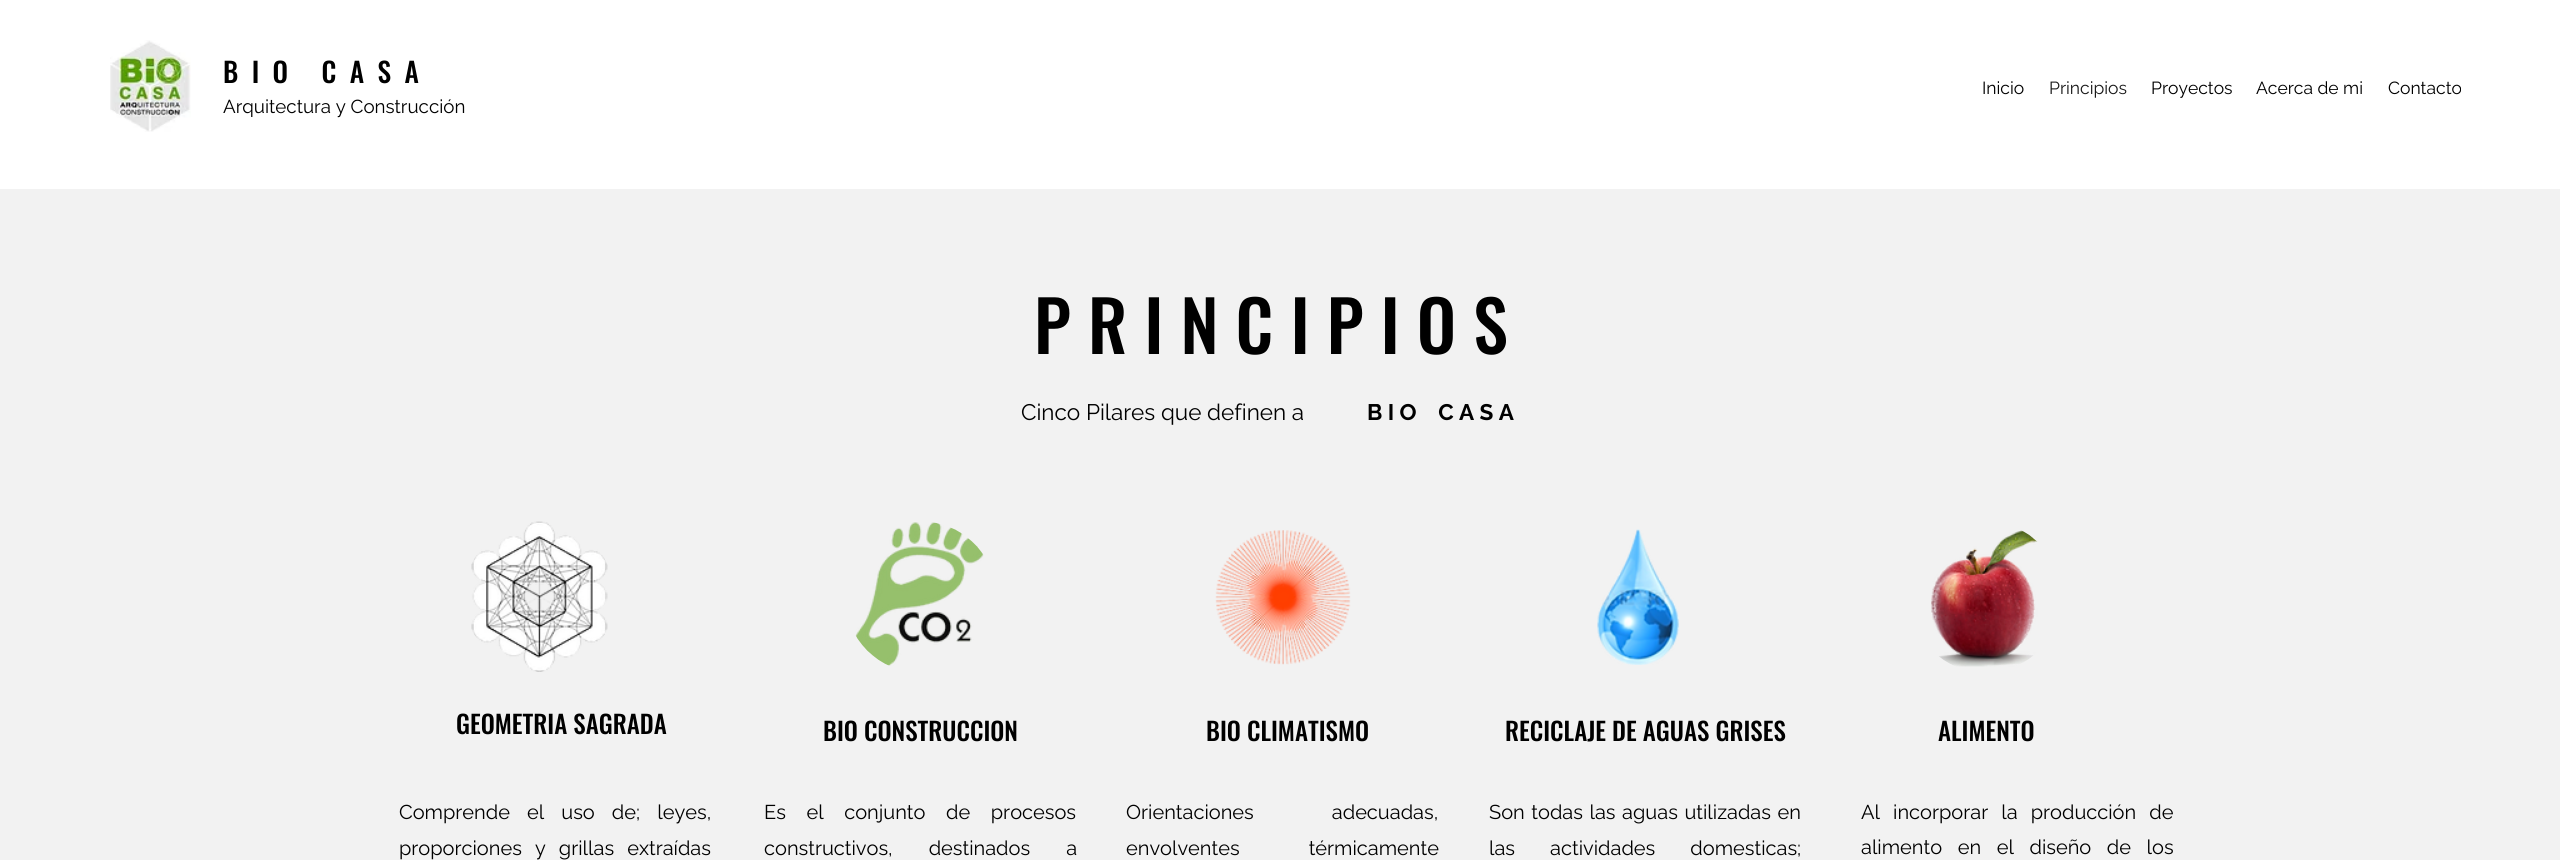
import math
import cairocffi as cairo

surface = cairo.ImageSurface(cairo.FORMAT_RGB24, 2560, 860)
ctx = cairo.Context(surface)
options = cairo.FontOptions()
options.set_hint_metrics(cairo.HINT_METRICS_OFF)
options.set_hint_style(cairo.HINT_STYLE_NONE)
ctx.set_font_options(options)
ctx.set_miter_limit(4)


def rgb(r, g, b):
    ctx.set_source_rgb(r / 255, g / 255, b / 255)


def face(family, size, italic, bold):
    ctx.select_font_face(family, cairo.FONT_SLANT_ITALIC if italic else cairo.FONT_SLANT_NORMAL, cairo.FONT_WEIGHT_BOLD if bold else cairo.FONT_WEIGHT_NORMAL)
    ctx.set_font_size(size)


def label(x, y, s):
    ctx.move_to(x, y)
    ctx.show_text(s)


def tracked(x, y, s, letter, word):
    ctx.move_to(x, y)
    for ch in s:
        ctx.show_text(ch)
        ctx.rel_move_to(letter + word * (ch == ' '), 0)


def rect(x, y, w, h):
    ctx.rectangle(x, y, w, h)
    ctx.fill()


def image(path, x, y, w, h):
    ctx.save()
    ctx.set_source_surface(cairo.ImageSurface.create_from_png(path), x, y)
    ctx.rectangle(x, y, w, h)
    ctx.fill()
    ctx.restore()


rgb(242, 242, 242)
ctx.paint()
rgb(255, 255, 255)
rect(0, 0, 2560, 189)
image('image0.png', 110, 40, 81, 92)
face('Oswald Medium', 27.5, 0, 0)
rgb(0, 0, 0)
label(223, 83, 'B  I  O     C  A  S  A')
face('Raleway', 18.75, 0, 0)
label(223, 113, 'Arquitectura y Construcción')
face('Raleway', 17.5, 0, 0)
label(1982, 94, 'Inicio')
rgb(25, 25, 25)
label(2049, 94, 'Principios')
rgb(0, 0, 0)
label(2151, 94, 'Proyectos')
label(2256, 94, 'Acerca de mi')
label(2388, 94, 'Contacto')
face('Oswald Medium', 70, 0, 0)
label(1034, 354, 'P R I N C I P I O S')
face('Raleway', 22.5, 0, 0)
label(1021, 420, 'Cinco Pilares que definen a')
face('Raleway', 22.5, 0, 1)
label(1367, 420, 'B I O    C A S A')
image('image1.png', 471, 521, 137, 151)
face('Oswald Medium', 25, 0, 0)
label(456, 734, 'GEOMETRIA SAGRADA')
face('Raleway', 20, 0, 0)
tracked(399, 819, 'Comprende el uso de; leyes,', 0, 12)
tracked(399, 855, 'proporciones y grillas extraídas', 0, 8)
image('image2.png', 855, 522, 129, 144)
face('Oswald Medium', 25, 0, 0)
label(823, 741, 'BIO CONSTRUCCION')
face('Raleway', 20, 0, 0)
tracked(764, 819, 'Es el conjunto de procesos', 0, 15.5)
tracked(764, 855, 'constructivos, destinados a', 0, 31)
image('image3.png', 1215, 530, 136, 135)
face('Oswald Medium', 25, 0, 0)
label(1206, 741, 'BIO CLIMATISMO')
face('Raleway', 20, 0, 0)
tracked(1126, 819, 'Orientaciones adecuadas,', 0, 73)
tracked(1126, 855, 'envolventes térmicamente', 0, 64)
image('image4.png', 1597, 529, 82, 136)
face('Oswald Medium', 25, 0, 0)
label(1505, 741, 'RECICLAJE DE AGUAS GRISES')
face('Raleway', 20, 0, 0)
tracked(1489, 819, 'Son todas las aguas utilizadas en', 0, 1.5)
tracked(1489, 855, 'las actividades domesticas;', 0, 30)
image('image5.png', 1931, 530, 107, 137)
face('Oswald Medium', 25, 0, 0)
label(1938, 741, 'ALIMENTO')
face('Raleway', 20, 0, 0)
tracked(1861, 819, 'Al incorporar la producción de', 0, 8)
tracked(1861, 854, 'alimento en el diseño de los', 0, 10.5)
surface.write_to_png('render.png')
